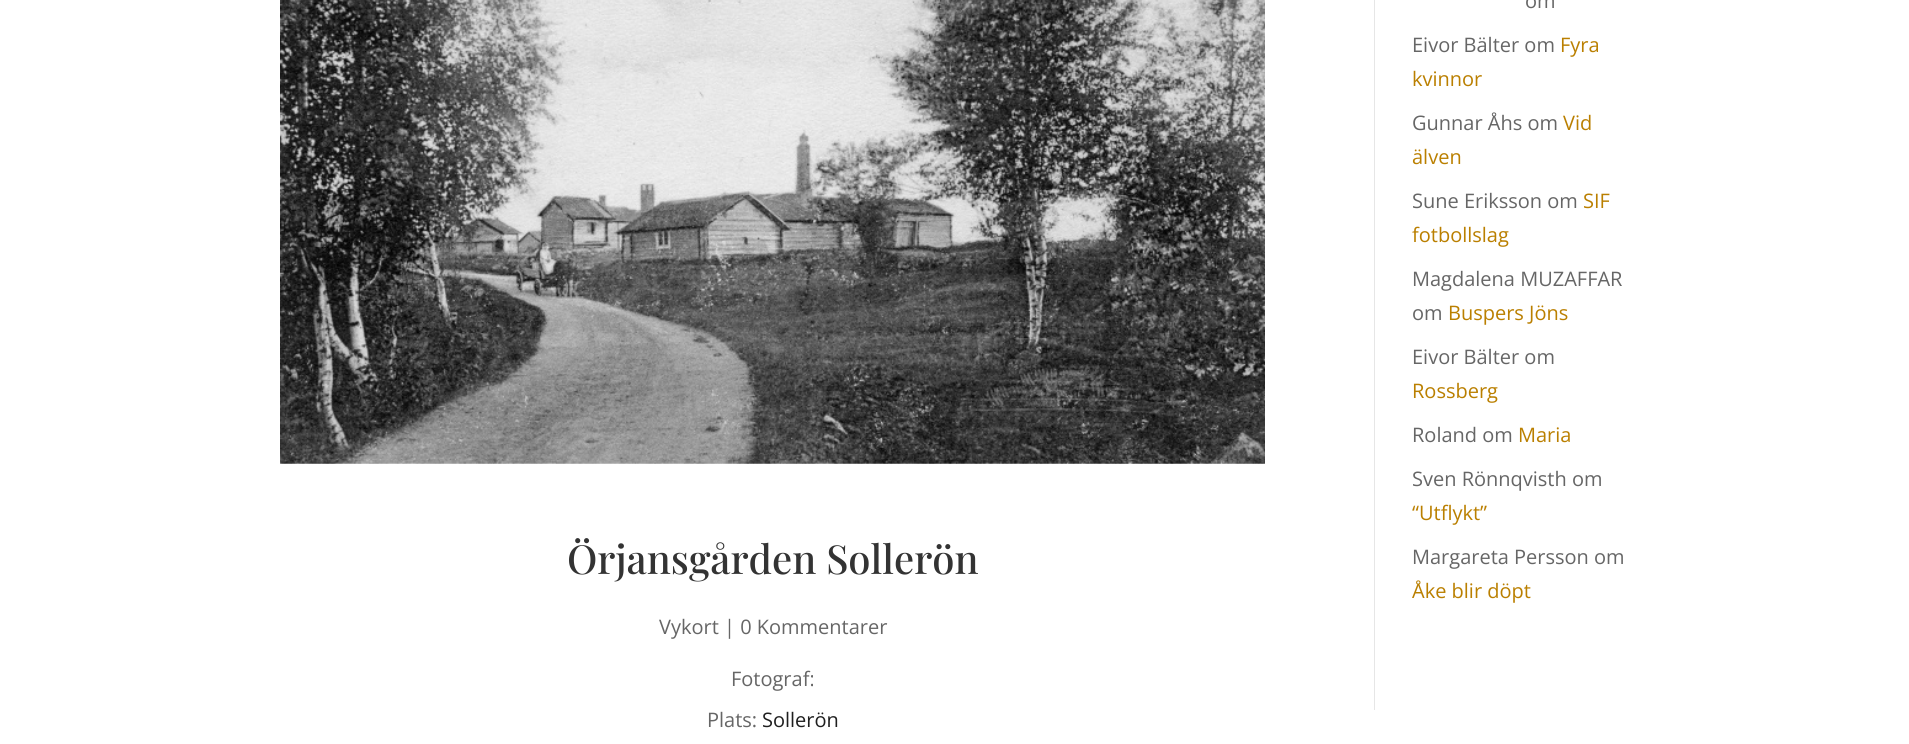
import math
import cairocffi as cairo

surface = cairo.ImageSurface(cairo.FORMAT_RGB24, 1909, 744)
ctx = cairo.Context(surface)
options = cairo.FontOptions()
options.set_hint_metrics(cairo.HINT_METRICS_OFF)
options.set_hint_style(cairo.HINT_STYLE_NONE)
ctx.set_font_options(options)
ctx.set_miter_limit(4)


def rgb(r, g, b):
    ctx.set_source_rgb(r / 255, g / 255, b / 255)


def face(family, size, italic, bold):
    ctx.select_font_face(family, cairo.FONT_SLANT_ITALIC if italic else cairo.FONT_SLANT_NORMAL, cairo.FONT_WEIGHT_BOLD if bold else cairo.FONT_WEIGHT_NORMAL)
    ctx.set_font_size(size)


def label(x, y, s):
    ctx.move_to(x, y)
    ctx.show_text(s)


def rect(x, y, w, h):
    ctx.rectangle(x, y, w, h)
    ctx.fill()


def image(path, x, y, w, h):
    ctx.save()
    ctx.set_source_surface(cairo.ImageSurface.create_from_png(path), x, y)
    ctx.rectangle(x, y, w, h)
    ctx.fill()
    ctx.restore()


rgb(255, 255, 255)
ctx.paint()
rgb(230, 230, 230)
rect(1374, 0, 1, 710)
face('Open Sans', 20, 0, 0)
rgb(102, 102, 102)
label(1525, 8, 'om')
label(1412, 52, 'Eivor Bälter om')
rgb(186, 127, 0)
label(1560, 52, 'Fyra')
label(1412, 86, 'kvinnor')
rgb(102, 102, 102)
label(1412, 130, 'Gunnar Åhs om')
rgb(186, 127, 0)
label(1563, 130, 'Vid')
label(1412, 164, 'älven')
rgb(102, 102, 102)
label(1412, 208, 'Sune Eriksson om')
rgb(186, 127, 0)
label(1583, 208, 'SIF')
label(1412, 242, 'fotbollslag')
rgb(102, 102, 102)
label(1412, 286, 'Magdalena MUZAFFAR')
label(1412, 320, 'om')
rgb(186, 127, 0)
label(1448, 320, 'Buspers Jöns')
rgb(102, 102, 102)
label(1412, 364, 'Eivor Bälter om')
rgb(186, 127, 0)
label(1412, 398, 'Rossberg')
rgb(102, 102, 102)
label(1412, 442, 'Roland om')
rgb(186, 127, 0)
label(1518, 442, 'Maria')
rgb(102, 102, 102)
label(1412, 486, 'Sven Rönnqvisth om')
rgb(186, 127, 0)
label(1412, 520, '“Utflykt”')
rgb(102, 102, 102)
label(1412, 564, 'Margareta Persson om')
rgb(186, 127, 0)
label(1412, 598, 'Åke blir döpt')
image('image0.png', 280, 0, 985, 464)
face('Playfair Display Medium', 40, 0, 0)
rgb(51, 51, 51)
label(567, 574, 'Örjansgården Sollerön')
face('Open Sans', 20, 0, 0)
rgb(102, 102, 102)
label(659, 634, 'Vykort | 0 Kommentarer')
label(731, 686, 'Fotograf:')
label(707, 727, 'Plats:')
rgb(31, 31, 31)
label(762, 727, 'Sollerön')
surface.write_to_png('render.png')
